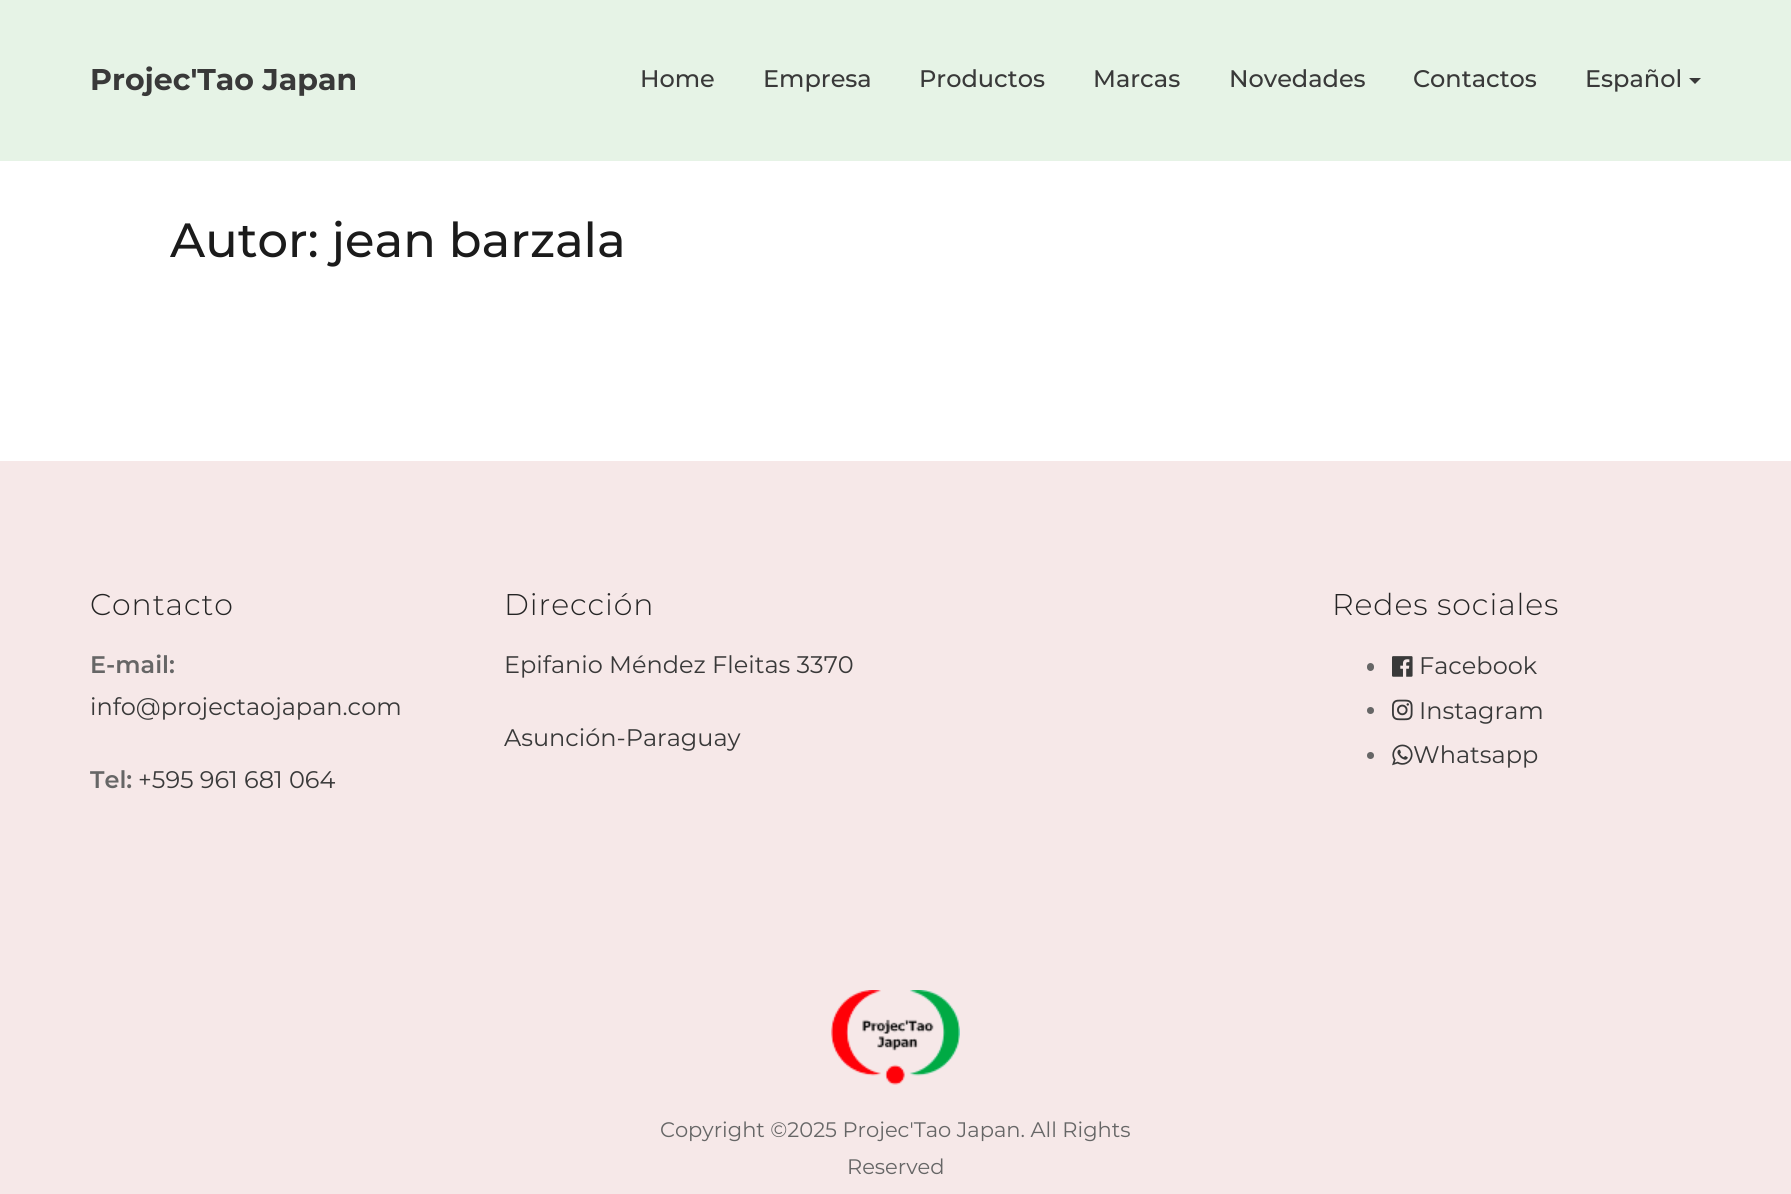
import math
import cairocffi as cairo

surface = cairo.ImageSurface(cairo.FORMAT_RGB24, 1791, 1194)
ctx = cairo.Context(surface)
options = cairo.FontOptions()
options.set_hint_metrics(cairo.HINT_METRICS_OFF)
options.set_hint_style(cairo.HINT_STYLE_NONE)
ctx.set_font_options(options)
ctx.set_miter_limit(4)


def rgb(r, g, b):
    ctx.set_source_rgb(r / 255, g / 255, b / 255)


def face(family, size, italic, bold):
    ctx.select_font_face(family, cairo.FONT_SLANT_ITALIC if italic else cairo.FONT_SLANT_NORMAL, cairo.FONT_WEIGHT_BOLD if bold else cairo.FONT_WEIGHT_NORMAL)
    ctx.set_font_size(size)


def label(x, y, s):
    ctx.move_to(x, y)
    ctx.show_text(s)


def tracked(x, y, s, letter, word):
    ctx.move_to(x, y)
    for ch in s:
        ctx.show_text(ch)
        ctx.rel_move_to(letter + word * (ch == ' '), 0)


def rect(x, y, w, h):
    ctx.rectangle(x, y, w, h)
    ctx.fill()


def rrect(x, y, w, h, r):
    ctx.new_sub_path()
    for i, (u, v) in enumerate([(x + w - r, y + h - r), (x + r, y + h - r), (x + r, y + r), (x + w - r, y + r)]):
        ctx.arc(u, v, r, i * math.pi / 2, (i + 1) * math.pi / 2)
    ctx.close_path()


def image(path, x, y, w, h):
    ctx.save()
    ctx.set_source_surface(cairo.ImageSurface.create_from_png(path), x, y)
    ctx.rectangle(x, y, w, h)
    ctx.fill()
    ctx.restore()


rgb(255, 255, 255)
ctx.paint()
rgb(230, 243, 230)
rect(0, 0, 1791, 161)
face('Montserrat', 30, 0, 1)
rgb(57, 57, 57)
label(90, 90, 'Projec\'Tao Japan')
face('Montserrat Medium', 24, 0, 0)
label(640, 87, 'Home')
label(763, 87, 'Empresa')
label(919, 87, 'Productos')
label(1093, 87, 'Marcas')
label(1229, 87, 'Novedades')
label(1413, 87, 'Contactos')
label(1585, 87, 'Español')
ctx.new_path()
ctx.move_to(1689, 78)
ctx.line_to(1701, 78)
ctx.line_to(1695, 84)
ctx.close_path()
ctx.fill()
face('Montserrat Medium', 48, 0, 0)
rgb(27, 27, 27)
label(170, 257, 'Autor: jean barzala')
rgb(246, 232, 232)
rect(0, 461, 1791, 733)
face('Montserrat Light', 30, 0, 0)
rgb(37, 37, 37)
tracked(90, 615, 'Contacto', 0.9, 0)
face('Montserrat SemiBold', 24, 0, 0)
rgb(102, 102, 102)
label(90, 673, 'E-mail:')
face('Montserrat', 24, 0, 0)
rgb(57, 57, 57)
label(90, 715, 'info@projectaojapan.com')
face('Montserrat SemiBold', 24, 0, 0)
rgb(102, 102, 102)
label(90, 788, 'Tel:')
face('Montserrat', 24, 0, 0)
rgb(57, 57, 57)
label(138, 788, '+595 961 681 064')
face('Montserrat Light', 30, 0, 0)
rgb(37, 37, 37)
tracked(504, 615, 'Dirección', 0.9, 0)
face('Montserrat', 24, 0, 0)
rgb(57, 57, 57)
label(504, 673, 'Epifanio Méndez Fleitas 3370')
label(504, 746, 'Asunción-Paraguay')
face('Montserrat Light', 30, 0, 0)
rgb(37, 37, 37)
tracked(1332, 615, 'Redes sociales', 0.9, 0)
rgb(102, 102, 102)
rrect(1367, 663, 7, 8, 3.5)
ctx.fill()
image('image0.png', 1392, 656, 21, 21)
face('Montserrat', 24, 0, 0)
rgb(57, 57, 57)
label(1419, 674, 'Facebook')
rgb(102, 102, 102)
ctx.new_path()
ctx.arc(1370.5, 710.5, 3.5, 0, 2 * math.pi)
ctx.fill()
image('image1.png', 1392, 699, 21, 22)
rgb(57, 57, 57)
label(1419, 719, 'Instagram')
rgb(102, 102, 102)
ctx.new_path()
ctx.arc(1370.5, 755.5, 3.5, 0, 2 * math.pi)
ctx.fill()
image('image2.png', 1392, 744, 21, 22)
rgb(57, 57, 57)
label(1413, 763, 'Whatsapp')
image('image3.png', 831, 990, 129, 95)
face('Montserrat', 21, 0, 0)
rgb(102, 102, 102)
label(660, 1137, 'Copyright ©2025 Projec\'Tao Japan. All Rights')
label(847, 1174, 'Reserved')
surface.write_to_png('render.png')
